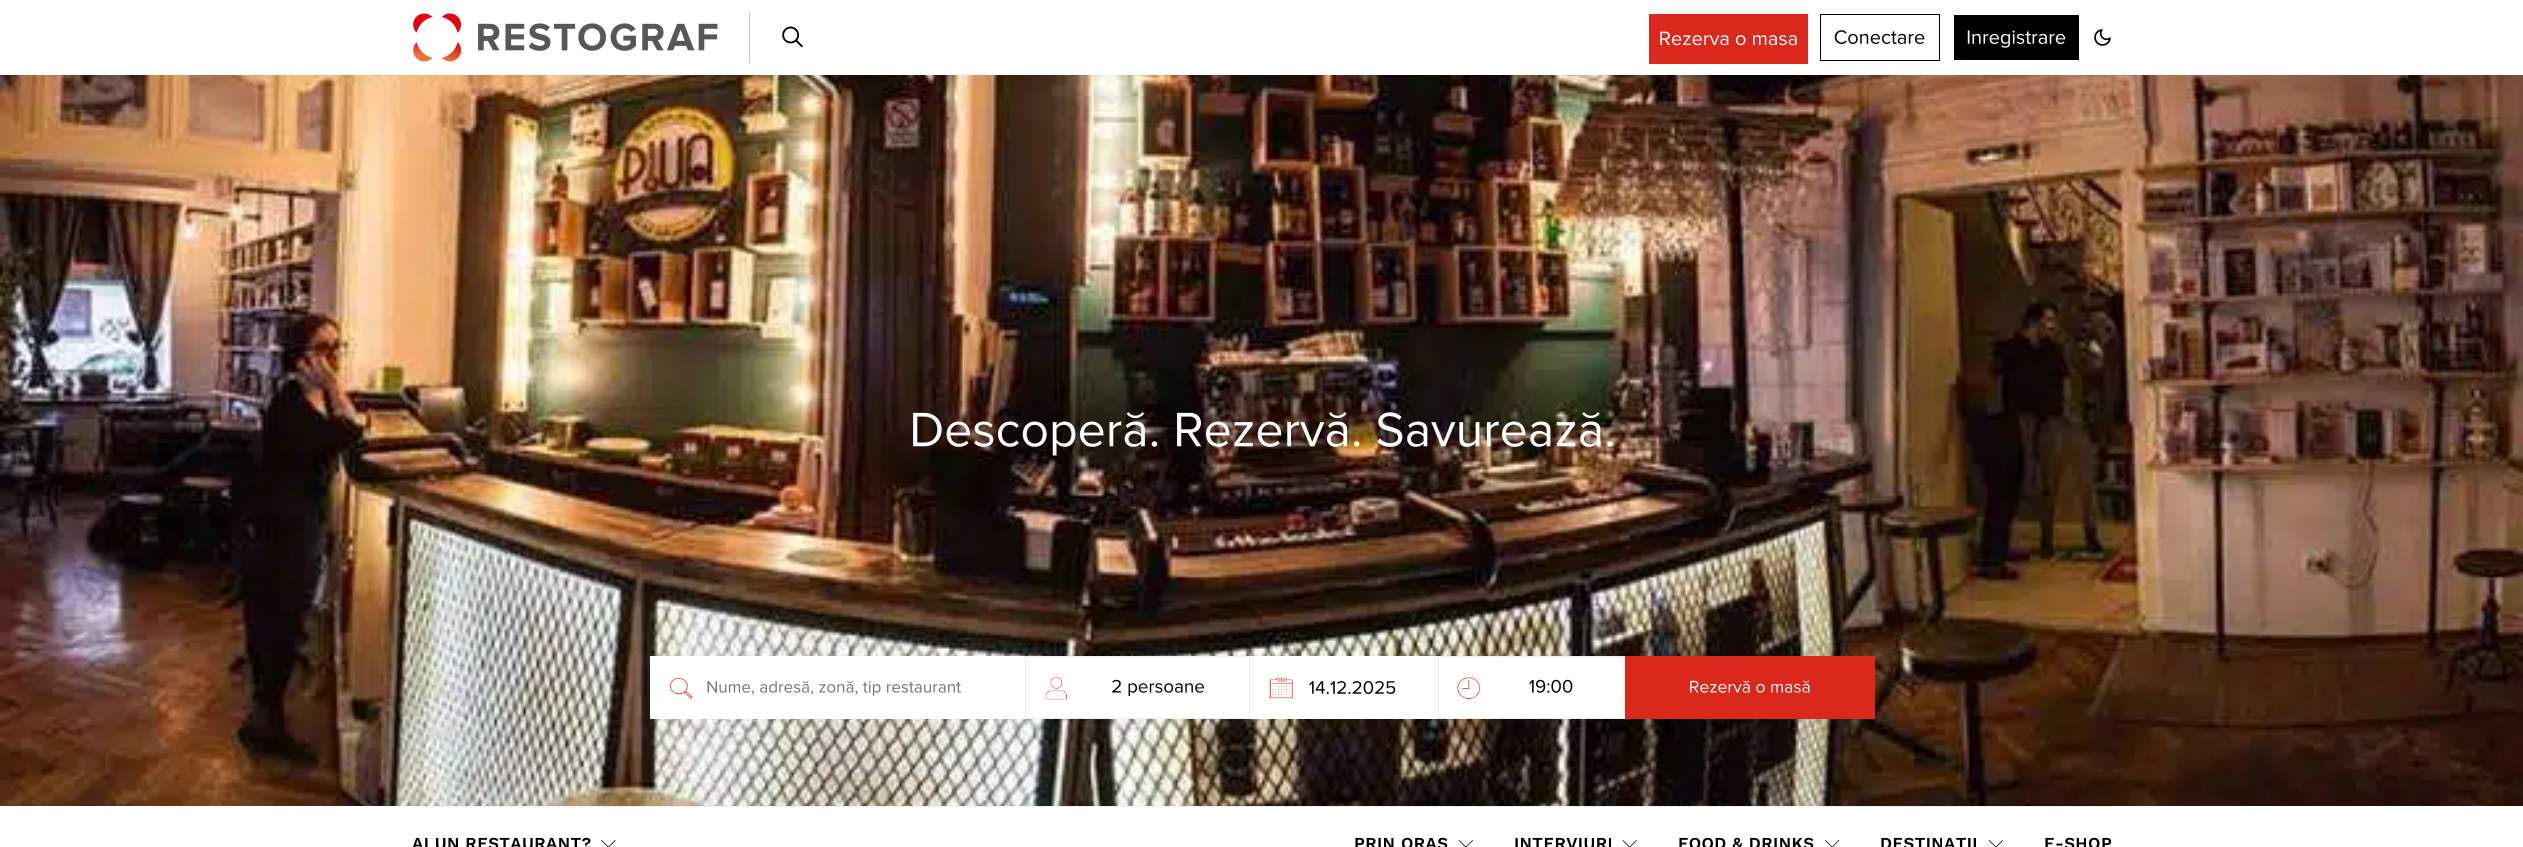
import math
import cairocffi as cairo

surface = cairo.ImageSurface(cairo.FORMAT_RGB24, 2523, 847)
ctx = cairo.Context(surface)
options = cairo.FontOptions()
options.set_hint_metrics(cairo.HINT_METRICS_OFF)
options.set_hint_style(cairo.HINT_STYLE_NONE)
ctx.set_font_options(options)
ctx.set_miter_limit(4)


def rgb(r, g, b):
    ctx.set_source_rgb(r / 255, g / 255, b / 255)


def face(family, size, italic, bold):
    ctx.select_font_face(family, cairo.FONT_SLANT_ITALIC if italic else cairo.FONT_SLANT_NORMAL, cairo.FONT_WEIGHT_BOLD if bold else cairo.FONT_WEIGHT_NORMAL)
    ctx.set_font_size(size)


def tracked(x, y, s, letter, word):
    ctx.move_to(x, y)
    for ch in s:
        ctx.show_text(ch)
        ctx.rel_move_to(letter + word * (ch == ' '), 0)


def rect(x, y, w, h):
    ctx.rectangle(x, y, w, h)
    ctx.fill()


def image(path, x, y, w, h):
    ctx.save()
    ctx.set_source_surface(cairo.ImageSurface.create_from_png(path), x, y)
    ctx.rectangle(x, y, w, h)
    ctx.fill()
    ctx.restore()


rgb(255, 255, 255)
ctx.paint()
rgb(192, 192, 192)
rect(749, 13, 1, 50)
image('image0.png', 413, 13, 305, 49)
image('image1.png', 782, 26, 21, 22)
rgb(218, 41, 28)
rect(1649, 14, 159, 50)
image('image2.png', 1660, 31, 137, 15)
ctx.rectangle(1820.5, 14.5, 119, 46)
rgb(0, 0, 0)
ctx.set_line_width(1)
ctx.stroke()
image('image3.png', 1834, 30, 91, 14)
rect(1954, 15, 125, 45)
image('image4.png', 1967, 30, 99, 18)
image('image5.png', 2094, 29, 17, 17)
image('image6.png', 0, 75, 2523, 731)
image('image7.png', 913, 412, 700, 44)
rgb(255, 255, 255)
rect(650, 656, 375, 63)
image('image8.png', 707, 681, 254, 15)
image('image9.png', 669, 677, 24, 22)
ctx.rectangle(1025.5, 656.5, 224, 62)
ctx.fill_preserve()
rgb(238, 238, 238)
ctx.stroke()
image('image10.png', 1112, 679, 92, 17)
image('image11.png', 1045, 677, 22, 23)
rgb(255, 255, 255)
rect(1250, 656, 188, 63)
image('image12.png', 1309, 681, 87, 13)
image('image13.png', 1269, 678, 24, 21)
ctx.rectangle(1438.5, 656.5, 186, 62)
ctx.fill_preserve()
rgb(238, 238, 238)
ctx.stroke()
image('image14.png', 1529, 679, 44, 14)
image('image15.png', 1457, 677, 24, 23)
rgb(218, 41, 28)
rect(1625, 656, 250, 63)
image('image16.png', 1690, 680, 120, 13)
rgb(238, 238, 238)
rect(413, 806, 1700, 1)
face('Work Sans SemiBold', 16.75, 0, 0)
rgb(0, 0, 0)
tracked(412, 849, 'AI UN RESTAURANT?', 0.4, 0)
image('image17.png', 601, 840, 15, 7)
tracked(1354, 849, 'PRIN ORAȘ', 0.4, 0)
image('image18.png', 1458, 840, 15, 7)
tracked(1514, 849, 'INTERVIURI', 0.4, 0)
image('image19.png', 1622, 840, 15, 7)
tracked(1678, 849, 'FOOD & DRINKS', 0.4, 0)
image('image20.png', 1825, 840, 15, 7)
tracked(1880, 849, 'DESTINAȚII', 0.4, 0)
image('image18.png', 1988, 840, 15, 7)
tracked(2044, 849, 'E-SHOP', 0.4, 0)
surface.write_to_png('render.png')
